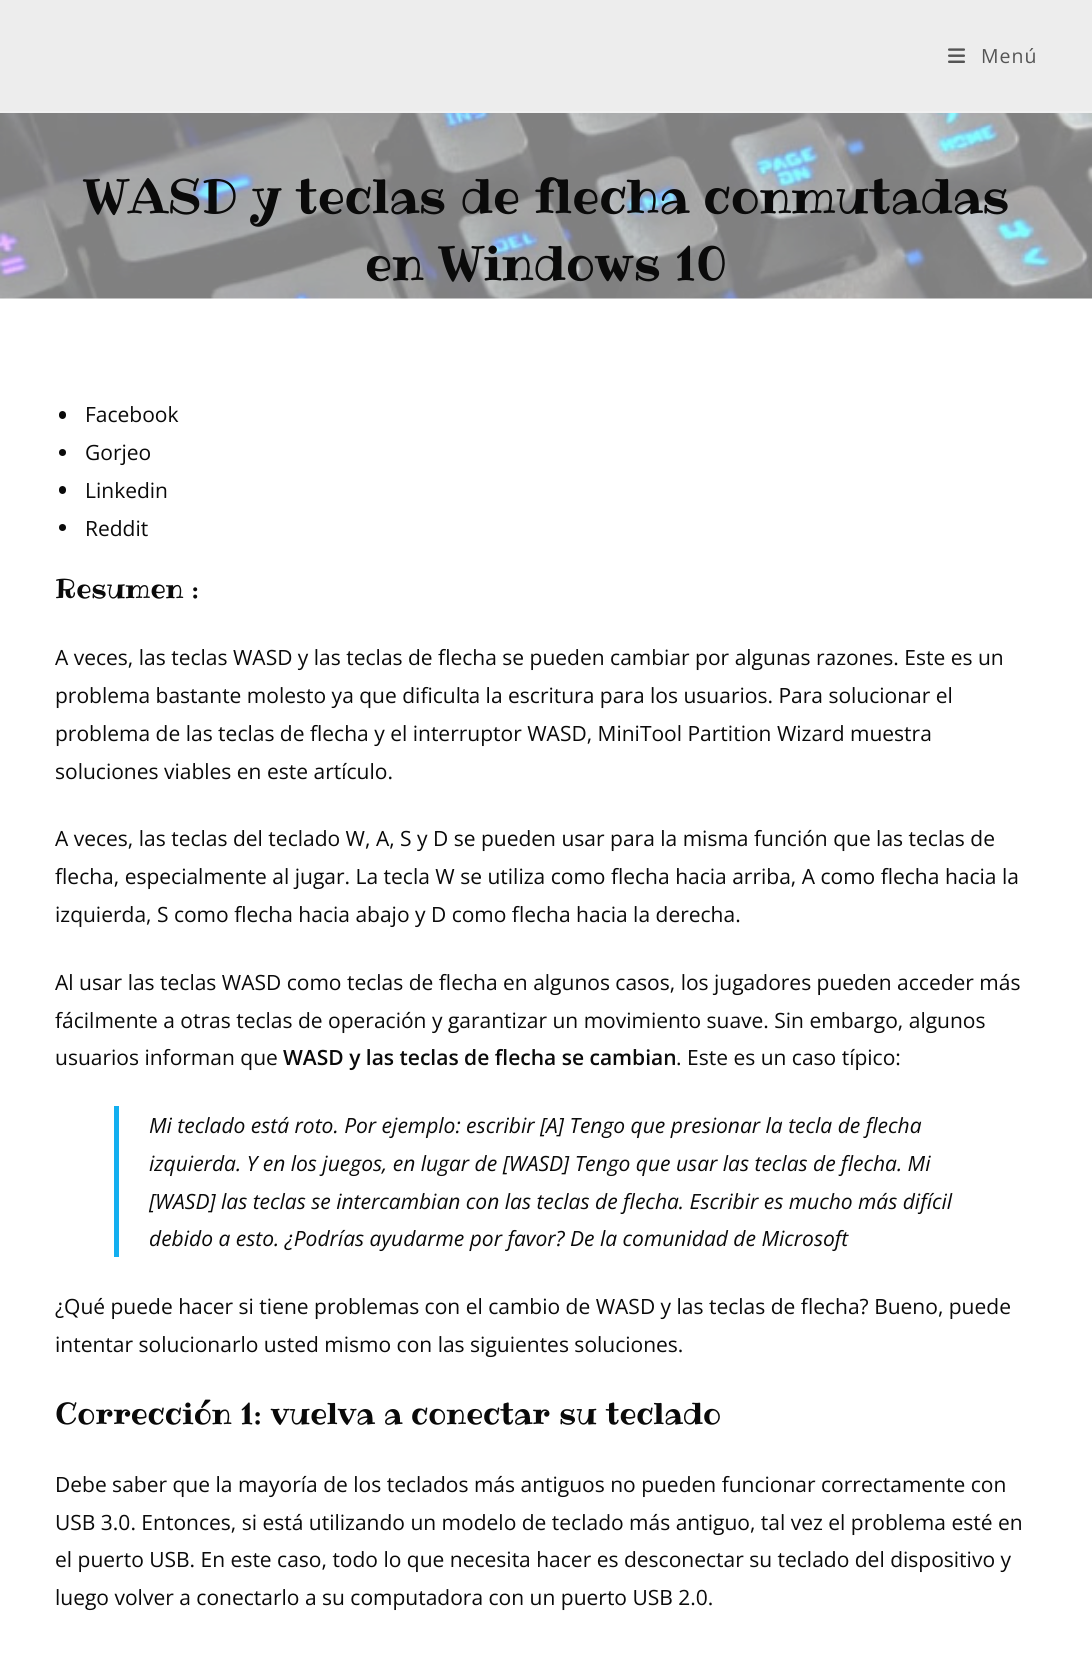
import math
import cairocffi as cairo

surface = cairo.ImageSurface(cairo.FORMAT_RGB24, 1092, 1668)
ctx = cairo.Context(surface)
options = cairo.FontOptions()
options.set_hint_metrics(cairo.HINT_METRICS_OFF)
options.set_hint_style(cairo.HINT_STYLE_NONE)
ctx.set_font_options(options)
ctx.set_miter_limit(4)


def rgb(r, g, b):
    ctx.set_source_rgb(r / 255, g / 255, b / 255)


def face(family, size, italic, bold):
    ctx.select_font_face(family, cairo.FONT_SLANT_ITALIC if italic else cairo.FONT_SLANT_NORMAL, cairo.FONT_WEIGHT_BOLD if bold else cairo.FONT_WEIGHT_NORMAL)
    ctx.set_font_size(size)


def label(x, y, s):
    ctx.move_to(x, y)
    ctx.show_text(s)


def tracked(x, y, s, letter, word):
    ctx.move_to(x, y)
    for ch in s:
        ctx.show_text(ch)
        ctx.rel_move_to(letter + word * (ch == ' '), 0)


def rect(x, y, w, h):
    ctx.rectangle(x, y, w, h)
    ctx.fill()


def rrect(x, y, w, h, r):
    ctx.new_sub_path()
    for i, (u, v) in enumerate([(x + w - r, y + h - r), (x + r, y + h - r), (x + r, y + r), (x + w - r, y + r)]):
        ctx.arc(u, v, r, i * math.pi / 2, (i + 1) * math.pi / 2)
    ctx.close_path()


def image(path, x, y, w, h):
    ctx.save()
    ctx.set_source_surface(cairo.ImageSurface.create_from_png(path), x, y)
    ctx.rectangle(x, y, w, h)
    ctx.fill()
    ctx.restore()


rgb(255, 255, 255)
ctx.paint()
rgb(237, 237, 237)
rect(0, 0, 1092, 111)
rgb(241, 241, 241)
rect(0, 111, 1092, 2)
image('image0.png', 948, 48, 17, 15)
face('Open Sans', 19.5, 0, 0)
rgb(85, 85, 85)
tracked(981, 63, 'Menú', 1, 0)
image('image1.png', 0, 113, 1092, 186)
face('Ribeye', 48, 0, 0)
rgb(10, 10, 10)
label(83, 213, 'WASD y teclas de flecha conmutadas')
label(365, 280, 'en Windows 10')
rrect(59, 411, 7, 8, 3.5)
ctx.fill()
face('Open Sans', 21, 0, 0)
label(85, 422, 'Facebook')
ctx.new_path()
ctx.arc(62.5, 452.5, 3.5, 0, 2 * math.pi)
ctx.fill()
label(85, 460, 'Gorjeo')
rrect(59, 486, 7, 8, 3.5)
ctx.fill()
label(85, 498, 'Linkedin')
ctx.new_path()
ctx.arc(62.5, 527.5, 3.5, 0, 2 * math.pi)
ctx.fill()
label(85, 536, 'Reddit')
face('Ribeye', 27, 0, 0)
label(55, 598, 'Resumen :')
face('Open Sans', 21, 0, 0)
label(55, 665, 'A veces, las teclas WASD y las teclas de flecha se pueden cambiar por algunas razones. Este es un')
label(55, 703, 'problema bastante molesto ya que dificulta la escritura para los usuarios. Para solucionar el')
label(55, 741, 'problema de las teclas de flecha y el interruptor WASD, MiniTool Partition Wizard muestra')
label(55, 779, 'soluciones viables en este artículo.')
label(55, 846, 'A veces, las teclas del teclado W, A, S y D se pueden usar para la misma función que las teclas de')
label(55, 884, 'flecha, especialmente al jugar. La tecla W se utiliza como flecha hacia arriba, A como flecha hacia la')
label(55, 922, 'izquierda, S como flecha hacia abajo y D como flecha hacia la derecha.')
label(55, 990, 'Al usar las teclas WASD como teclas de flecha en algunos casos, los jugadores pueden acceder más')
label(55, 1028, 'fácilmente a otras teclas de operación y garantizar un movimiento suave. Sin embargo, algunos')
label(55, 1065, 'usuarios informan que')
face('Open Sans SemiBold', 21, 0, 0)
label(283, 1065, 'WASD y las teclas de flecha se cambian')
face('Open Sans', 21, 0, 0)
label(676, 1065, '. Este es un caso típico:')
rgb(19, 175, 240)
rect(114, 1106, 5, 151)
face('Open Sans', 21, 1, 0)
rgb(10, 10, 10)
label(149, 1133, 'Mi teclado está roto. Por ejemplo: escribir [A] Tengo que presionar la tecla de flecha')
label(149, 1171, 'izquierda. Y en los juegos, en lugar de [WASD] Tengo que usar las teclas de flecha. Mi')
label(149, 1209, '[WASD] las teclas se intercambian con las teclas de flecha. Escribir es mucho más difícil')
label(149, 1246, 'debido a esto. ¿Podrías ayudarme por favor? De la comunidad de Microsoft')
face('Open Sans', 21, 0, 0)
label(55, 1314, '¿Qué puede hacer si tiene problemas con el cambio de WASD y las teclas de flecha? Bueno, puede')
label(55, 1352, 'intentar solucionarlo usted mismo con las siguientes soluciones.')
face('Ribeye', 30, 0, 0)
label(55, 1424, 'Corrección 1: vuelva a conectar su teclado')
face('Open Sans', 21, 0, 0)
label(55, 1492, 'Debe saber que la mayoría de los teclados más antiguos no pueden funcionar correctamente con')
label(55, 1530, 'USB 3.0. Entonces, si está utilizando un modelo de teclado más antiguo, tal vez el problema esté en')
label(55, 1567, 'el puerto USB. En este caso, todo lo que necesita hacer es desconectar su teclado del dispositivo y')
label(55, 1605, 'luego volver a conectarlo a su computadora con un puerto USB 2.0.')
surface.write_to_png('render.png')
